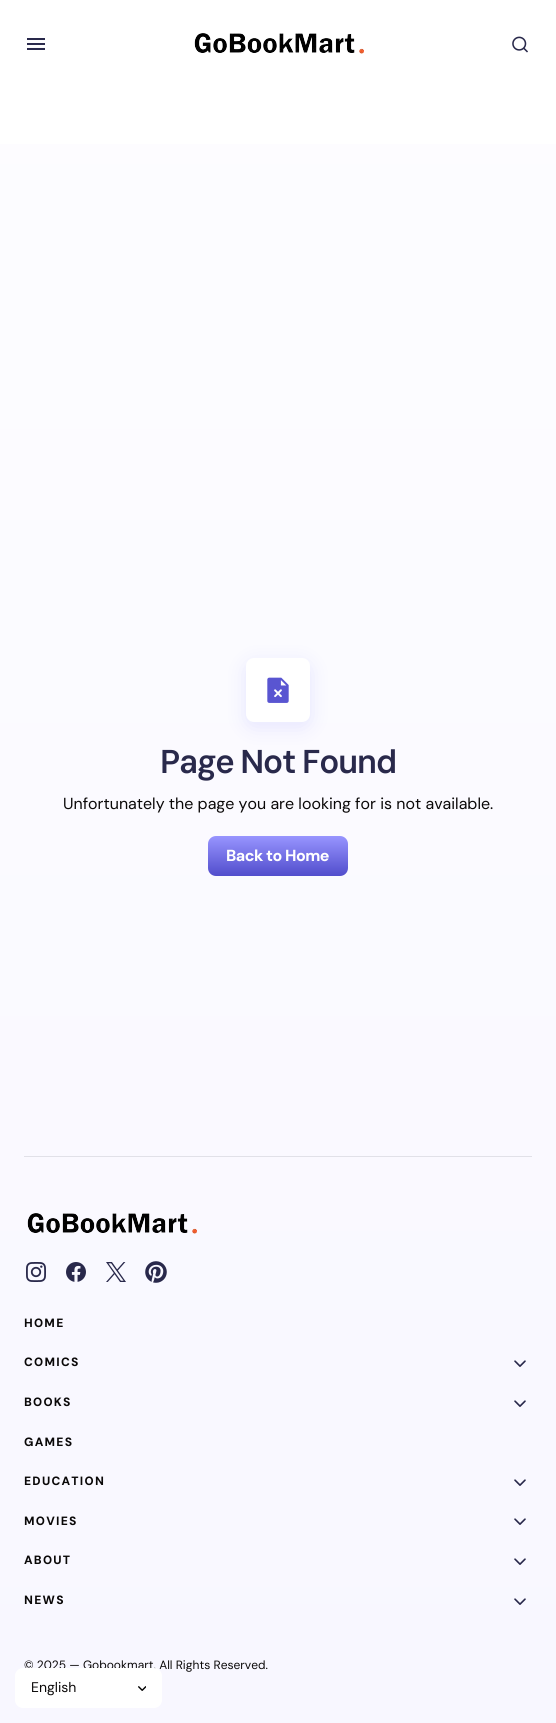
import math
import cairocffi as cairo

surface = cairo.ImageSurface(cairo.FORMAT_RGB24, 556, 1723)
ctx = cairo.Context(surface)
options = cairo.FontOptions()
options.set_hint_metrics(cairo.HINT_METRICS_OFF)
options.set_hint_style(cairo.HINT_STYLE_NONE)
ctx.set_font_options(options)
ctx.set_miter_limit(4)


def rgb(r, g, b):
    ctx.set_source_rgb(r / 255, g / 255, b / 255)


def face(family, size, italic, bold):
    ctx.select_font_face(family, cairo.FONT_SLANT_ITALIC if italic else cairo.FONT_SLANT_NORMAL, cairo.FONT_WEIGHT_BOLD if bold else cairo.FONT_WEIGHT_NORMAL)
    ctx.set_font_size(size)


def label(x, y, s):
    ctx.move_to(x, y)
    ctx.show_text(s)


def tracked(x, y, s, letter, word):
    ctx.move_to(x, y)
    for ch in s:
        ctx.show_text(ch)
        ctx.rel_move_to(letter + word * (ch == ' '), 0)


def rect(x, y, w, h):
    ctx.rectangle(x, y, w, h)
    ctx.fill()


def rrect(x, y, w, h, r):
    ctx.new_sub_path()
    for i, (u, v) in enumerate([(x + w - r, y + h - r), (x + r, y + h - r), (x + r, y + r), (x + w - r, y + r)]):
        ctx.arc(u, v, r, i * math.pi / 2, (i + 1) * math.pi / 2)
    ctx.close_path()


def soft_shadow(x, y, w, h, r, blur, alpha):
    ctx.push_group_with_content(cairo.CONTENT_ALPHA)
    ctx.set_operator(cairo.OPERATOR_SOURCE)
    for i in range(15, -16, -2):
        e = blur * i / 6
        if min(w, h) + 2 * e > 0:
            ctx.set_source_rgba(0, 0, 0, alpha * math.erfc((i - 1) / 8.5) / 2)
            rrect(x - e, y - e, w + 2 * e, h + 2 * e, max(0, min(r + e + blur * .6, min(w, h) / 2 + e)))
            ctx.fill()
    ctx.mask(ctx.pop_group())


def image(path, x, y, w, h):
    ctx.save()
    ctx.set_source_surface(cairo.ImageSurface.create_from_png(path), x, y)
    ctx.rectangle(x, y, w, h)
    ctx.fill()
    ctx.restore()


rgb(255, 255, 255)
ctx.paint()
gradient = cairo.LinearGradient(278, 0, 278, 1723)
gradient.add_color_stop_rgba(0, 0.992, 0.992, 1, 1)
gradient.add_color_stop_rgba(1, 0.973, 0.969, 1, 1)
ctx.set_source(gradient)
rect(0, 144, 556, 1579)
image('image0.png', 27, 38, 18, 12)
image('image1.png', 194, 33, 170, 21)
image('image2.png', 512, 36, 16, 17)
rgb(114, 114, 255)
soft_shadow(246, 663, 64, 64, 8, 10, 0.15)
rgb(255, 255, 255)
rrect(246, 658, 64, 64, 8)
ctx.fill()
image('image3.png', 267, 677, 22, 26)
face('DM Sans SemiBold', 33, 0, 0)
rgb(41, 41, 75)
tracked(160, 773, 'Page Not Found', -1.25, 0)
face('DM Sans', 16, 0, 0)
rgb(10, 8, 8)
label(63, 809, 'Unfortunately the page you are looking for is not available.')
gradient = cairo.LinearGradient(278, 836, 278, 876)
gradient.add_color_stop_rgba(0, 0.596, 0.584, 1, 1)
gradient.add_color_stop_rgba(1, 0.318, 0.302, 0.8, 1)
ctx.set_source(gradient)
rrect(208, 836, 140, 40, 8)
ctx.fill()
face('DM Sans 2 ExtraBold', 16, 0, 0)
rgb(255, 255, 255)
tracked(226, 861, 'Back to Home', -0.5, 0)
rgb(225, 225, 232)
rect(24, 1156, 508, 1)
image('image4.png', 27, 1213, 170, 21)
image('image5.png', 26, 1262, 20, 20)
image('image6.png', 66, 1262, 20, 20)
image('image7.png', 106, 1262, 20, 20)
image('image8.png', 145, 1261, 22, 22)
face('DM Sans ExtraBold', 12, 0, 0)
rgb(10, 8, 8)
tracked(24, 1327, 'HOME', 1.25, 0)
tracked(24, 1366, 'COMICS', 1.25, 0)
image('image9.png', 514, 1360, 12, 7)
tracked(24, 1406, 'BOOKS', 1.25, 0)
image('image9.png', 514, 1400, 12, 7)
tracked(24, 1446, 'GAMES', 1.25, 0)
tracked(24, 1485, 'EDUCATION', 1.25, 0)
image('image9.png', 514, 1479, 12, 7)
tracked(24, 1525, 'MOVIES', 1.25, 0)
image('image9.png', 514, 1518, 12, 7)
tracked(24, 1564, 'ABOUT', 1.25, 0)
image('image10.png', 514, 1558, 12, 7)
tracked(24, 1604, 'NEWS', 1.25, 0)
image('image11.png', 514, 1598, 12, 7)
face('DM Sans 2', 12, 0, 0)
label(24, 1669, '© 2025 — Gobookmart. All Rights Reserved.')
rgb(255, 255, 255)
rrect(15, 1668, 147, 40, 8)
ctx.fill()
image('image12.png', 138, 1686, 8, 5)
face('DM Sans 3', 14, 0, 0)
rgb(10, 8, 8)
label(31, 1692, 'English')
surface.write_to_png('render.png')
